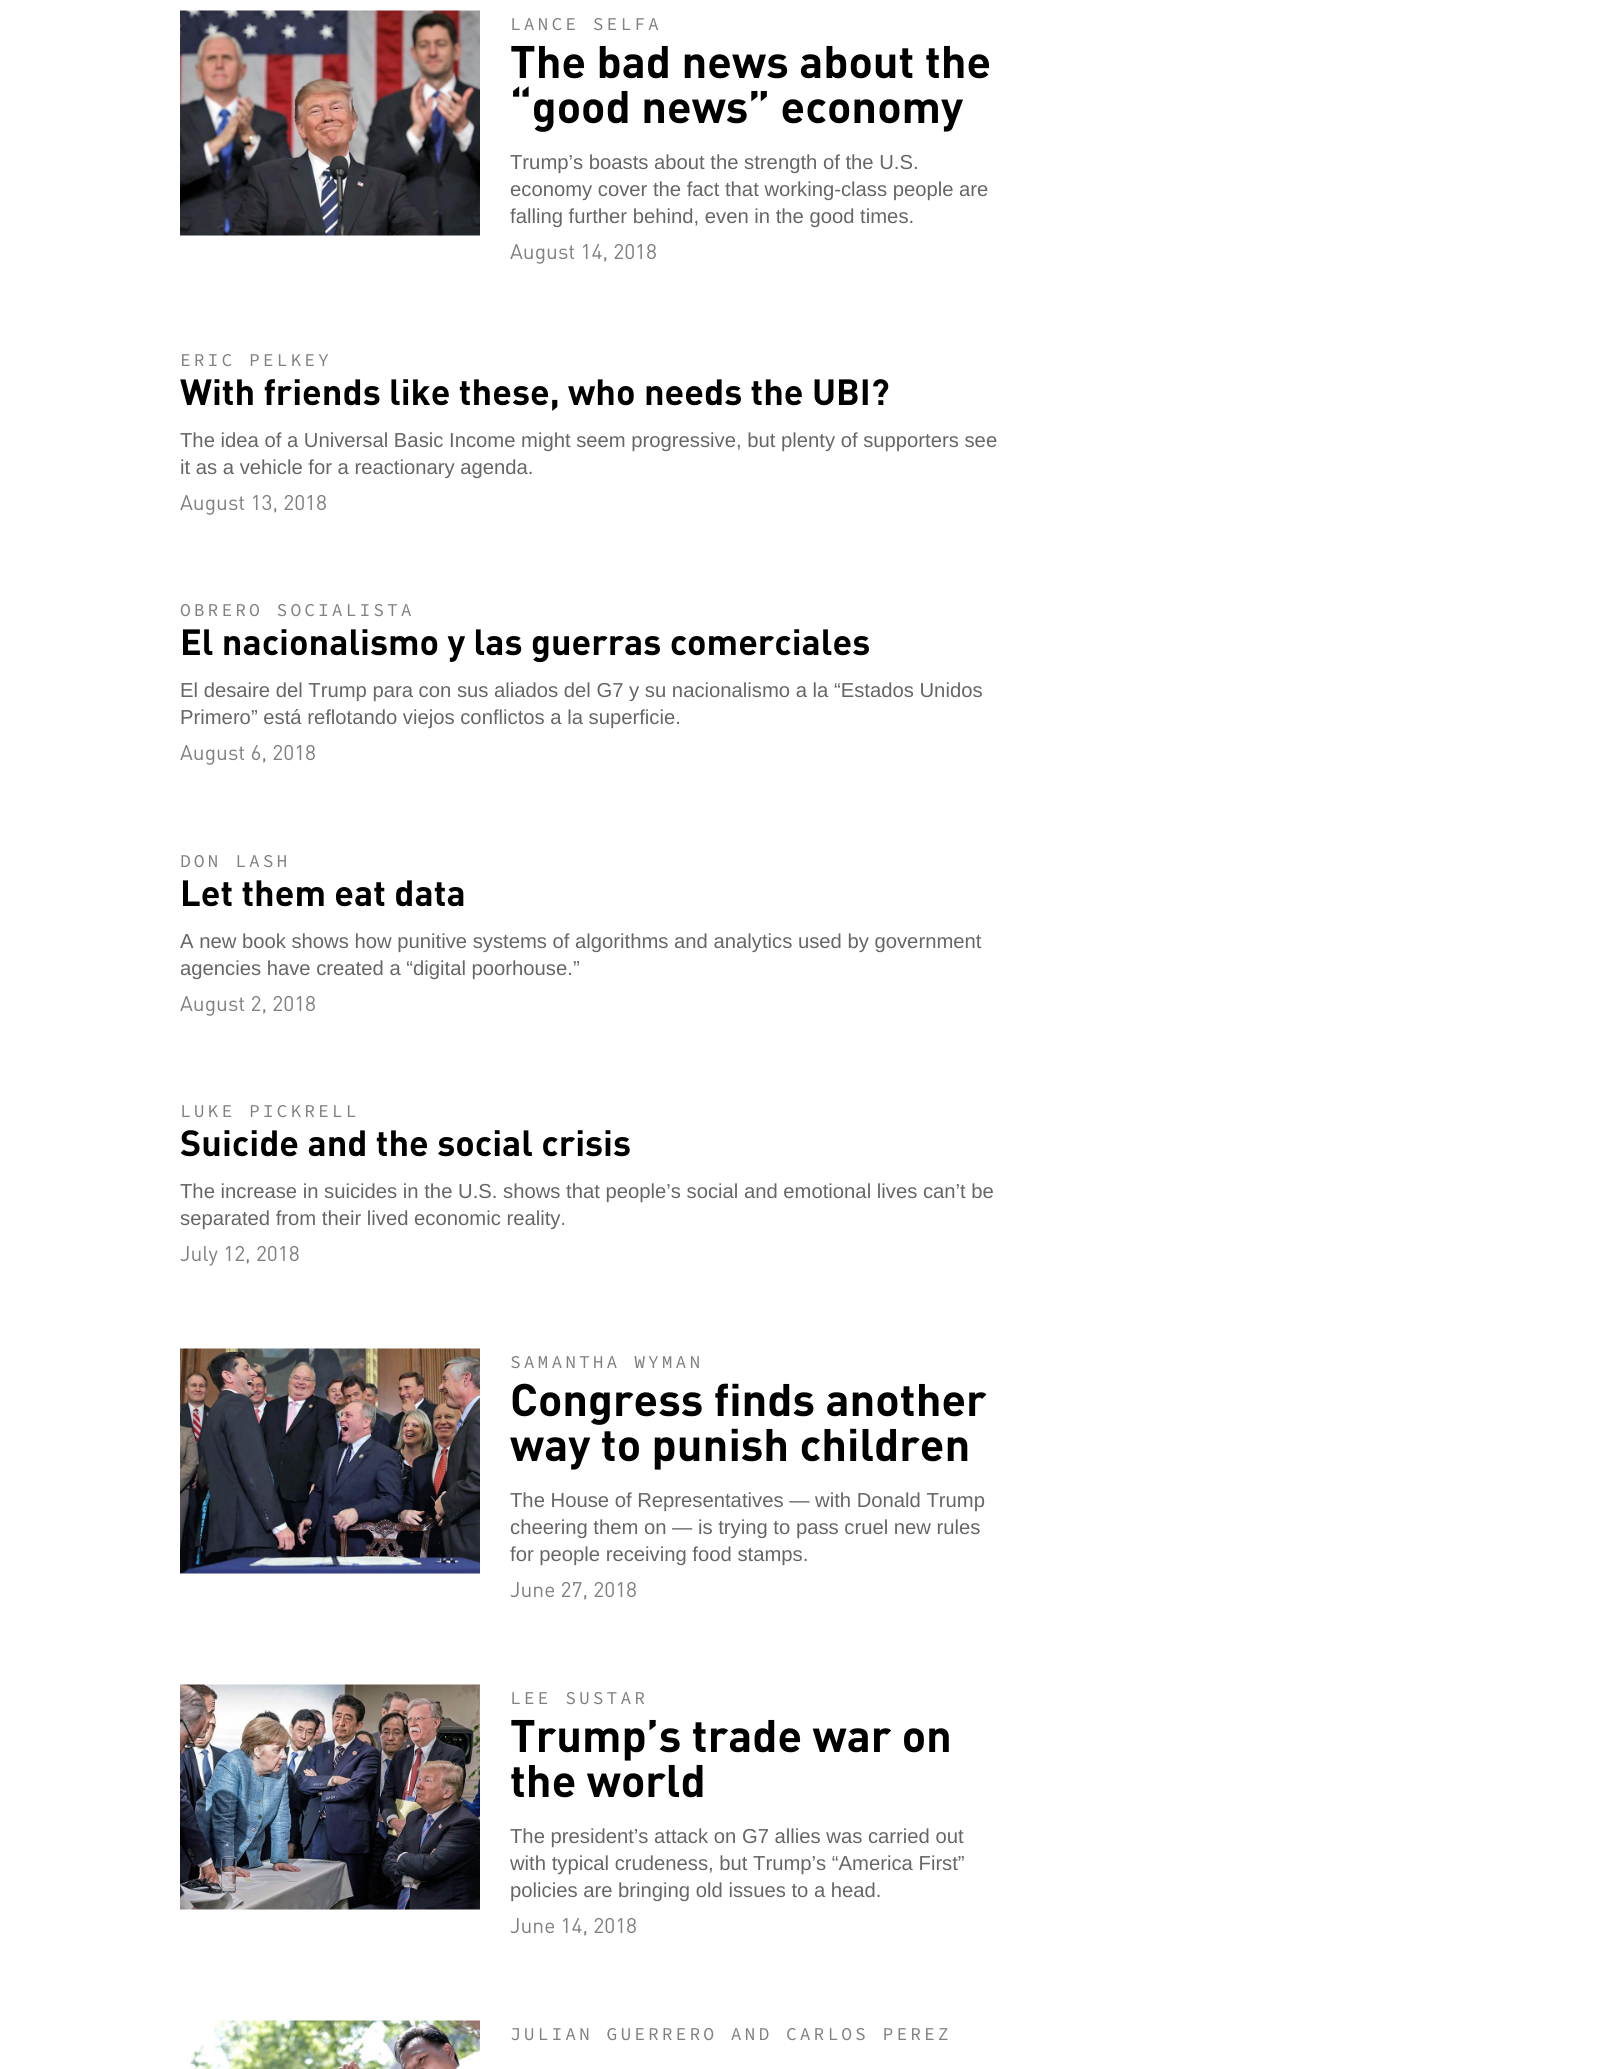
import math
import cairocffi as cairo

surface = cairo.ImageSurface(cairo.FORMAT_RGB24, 1615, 2069)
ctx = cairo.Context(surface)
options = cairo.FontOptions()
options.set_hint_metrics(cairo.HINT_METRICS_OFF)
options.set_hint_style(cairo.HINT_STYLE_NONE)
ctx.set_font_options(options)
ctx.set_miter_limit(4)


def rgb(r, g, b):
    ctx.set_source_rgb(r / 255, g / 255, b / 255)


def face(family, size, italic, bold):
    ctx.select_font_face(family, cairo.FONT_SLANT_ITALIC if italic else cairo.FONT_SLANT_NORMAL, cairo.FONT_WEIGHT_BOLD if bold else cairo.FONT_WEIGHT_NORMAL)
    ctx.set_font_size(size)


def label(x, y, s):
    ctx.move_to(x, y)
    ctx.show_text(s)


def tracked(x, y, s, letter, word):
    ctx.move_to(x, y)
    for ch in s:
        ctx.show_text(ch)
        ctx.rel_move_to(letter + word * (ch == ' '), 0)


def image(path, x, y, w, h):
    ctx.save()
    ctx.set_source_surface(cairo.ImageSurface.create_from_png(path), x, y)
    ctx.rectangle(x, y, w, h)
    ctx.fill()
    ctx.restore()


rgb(255, 255, 255)
ctx.paint()
image('image0.png', 180, 10, 300, 226)
face('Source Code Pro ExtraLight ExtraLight', 18, 0, 0)
rgb(128, 128, 128)
tracked(510, 30, 'LANCE SELFA', 3, 0)
face('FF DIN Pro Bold', 45, 0, 0)
rgb(0, 0, 0)
label(510, 78, 'The bad news about the')
label(510, 123, '“good news” economy')
face('Liberation Sans', 20.25, 0, 0)
rgb(102, 102, 102)
label(510, 169, 'Trump’s boasts about the strength of the U.S.')
label(510, 196, 'economy cover the fact that working-class people are')
label(510, 223, 'falling further behind, even in the good times.')
face('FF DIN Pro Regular', 21, 0, 0)
rgb(128, 128, 128)
label(510, 259, 'August 14, 2018')
face('Source Code Pro ExtraLight ExtraLight', 18, 0, 0)
tracked(180, 366, 'ERIC PELKEY', 3, 0)
face('FF DIN Pro Bold', 36, 0, 0)
rgb(0, 0, 0)
label(180, 405, 'With friends like these, who needs the UBI?')
face('Liberation Sans', 20.25, 0, 0)
rgb(102, 102, 102)
label(180, 447, 'The idea of a Universal Basic Income might seem progressive, but plenty of supporters see')
label(180, 474, 'it as a vehicle for a reactionary agenda.')
face('FF DIN Pro Regular', 21, 0, 0)
rgb(128, 128, 128)
label(180, 510, 'August 13, 2018')
face('Source Code Pro ExtraLight ExtraLight', 18, 0, 0)
tracked(180, 616, 'OBRERO SOCIALISTA', 3, 0)
face('FF DIN Pro Bold', 36, 0, 0)
rgb(0, 0, 0)
label(180, 655, 'El nacionalismo y las guerras comerciales')
face('Liberation Sans', 20.25, 0, 0)
rgb(102, 102, 102)
label(180, 697, 'El desaire del Trump para con sus aliados del G7 y su nacionalismo a la “Estados Unidos')
label(180, 724, 'Primero” está reflotando viejos conflictos a la superficie.')
face('FF DIN Pro Regular', 21, 0, 0)
rgb(128, 128, 128)
label(180, 760, 'August 6, 2018')
face('Source Code Pro ExtraLight ExtraLight', 18, 0, 0)
tracked(180, 867, 'DON LASH', 3, 0)
face('FF DIN Pro Bold', 36, 0, 0)
rgb(0, 0, 0)
label(180, 906, 'Let them eat data')
face('Liberation Sans', 20.25, 0, 0)
rgb(102, 102, 102)
label(180, 948, 'A new book shows how punitive systems of algorithms and analytics used by government')
label(180, 975, 'agencies have created a “digital poorhouse.”')
face('FF DIN Pro Regular', 21, 0, 0)
rgb(128, 128, 128)
label(180, 1011, 'August 2, 2018')
face('Source Code Pro ExtraLight ExtraLight', 18, 0, 0)
tracked(180, 1117, 'LUKE PICKRELL', 3, 0)
face('FF DIN Pro Bold', 36, 0, 0)
rgb(0, 0, 0)
label(180, 1156, 'Suicide and the social crisis')
face('Liberation Sans', 20.25, 0, 0)
rgb(102, 102, 102)
label(180, 1198, 'The increase in suicides in the U.S. shows that people’s social and emotional lives can’t be')
label(180, 1225, 'separated from their lived economic reality.')
face('FF DIN Pro Regular', 21, 0, 0)
rgb(128, 128, 128)
label(180, 1261, 'July 12, 2018')
image('image1.png', 180, 1348, 300, 226)
face('Source Code Pro ExtraLight ExtraLight', 18, 0, 0)
tracked(510, 1368, 'SAMANTHA WYMAN', 3, 0)
face('FF DIN Pro Bold', 45, 0, 0)
rgb(0, 0, 0)
label(510, 1416, 'Congress finds another')
label(510, 1461, 'way to punish children')
face('Liberation Sans', 20.25, 0, 0)
rgb(102, 102, 102)
label(510, 1507, 'The House of Representatives — with Donald Trump')
label(510, 1534, 'cheering them on — is trying to pass cruel new rules')
label(510, 1561, 'for people receiving food stamps.')
face('FF DIN Pro Regular', 21, 0, 0)
rgb(128, 128, 128)
label(510, 1597, 'June 27, 2018')
image('image2.png', 180, 1684, 300, 226)
face('Source Code Pro ExtraLight ExtraLight', 18, 0, 0)
tracked(510, 1704, 'LEE SUSTAR', 3, 0)
face('FF DIN Pro Bold', 45, 0, 0)
rgb(0, 0, 0)
label(510, 1752, 'Trump’s trade war on')
label(510, 1797, 'the world')
face('Liberation Sans', 20.25, 0, 0)
rgb(102, 102, 102)
label(510, 1843, 'The president’s attack on G7 allies was carried out')
label(510, 1870, 'with typical crudeness, but Trump’s “America First”')
label(510, 1897, 'policies are bringing old issues to a head.')
face('FF DIN Pro Regular', 21, 0, 0)
rgb(128, 128, 128)
label(510, 1933, 'June 14, 2018')
image('image3.png', 189, 2020, 291, 49)
face('Source Code Pro ExtraLight ExtraLight', 18, 0, 0)
tracked(510, 2040, 'JULIAN GUERRERO AND CARLOS PEREZ', 3, 0)
surface.write_to_png('render.png')
